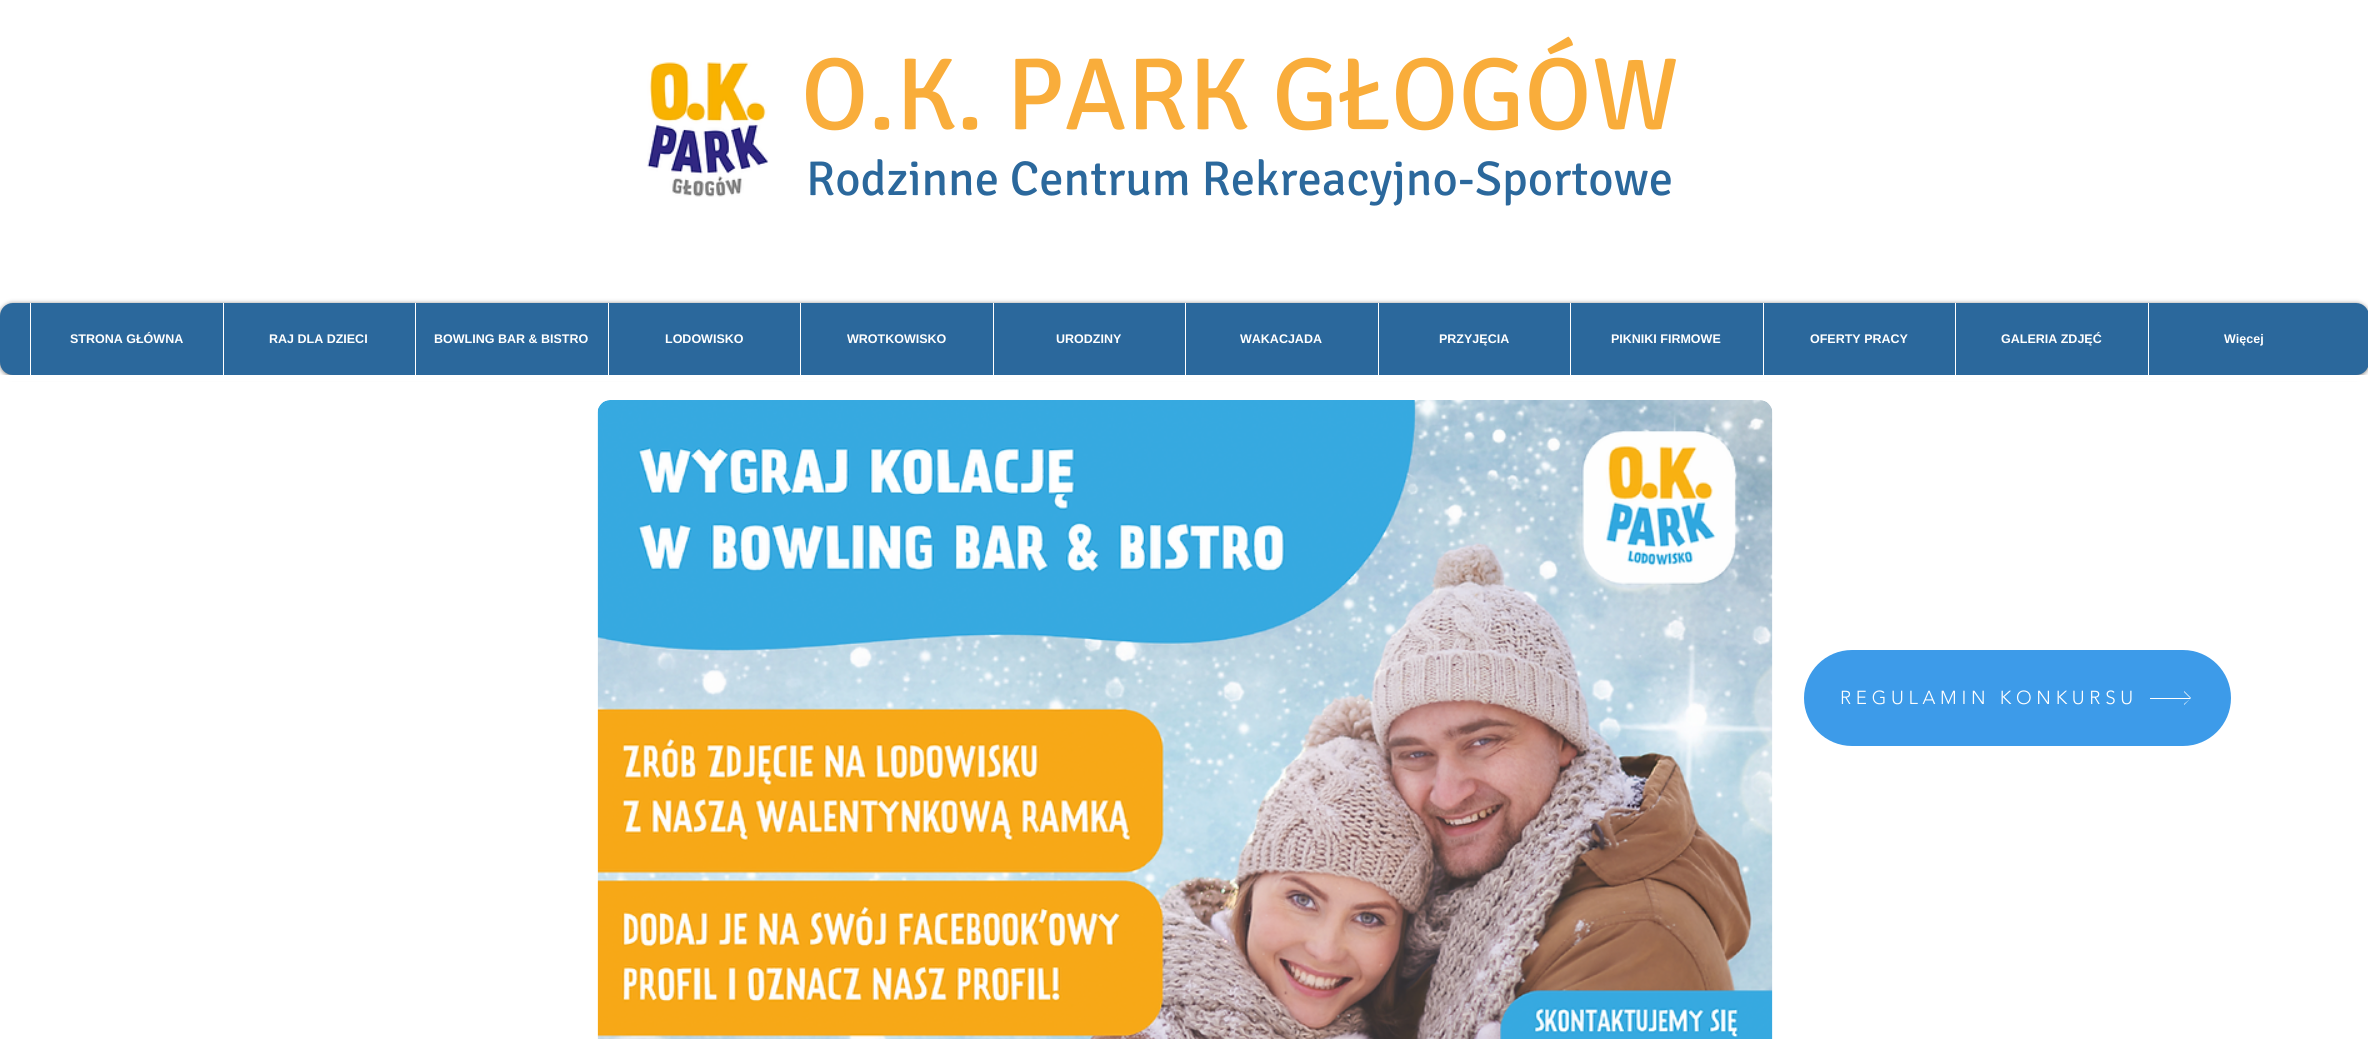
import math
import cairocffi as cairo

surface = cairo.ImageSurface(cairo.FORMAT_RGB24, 2368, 1039)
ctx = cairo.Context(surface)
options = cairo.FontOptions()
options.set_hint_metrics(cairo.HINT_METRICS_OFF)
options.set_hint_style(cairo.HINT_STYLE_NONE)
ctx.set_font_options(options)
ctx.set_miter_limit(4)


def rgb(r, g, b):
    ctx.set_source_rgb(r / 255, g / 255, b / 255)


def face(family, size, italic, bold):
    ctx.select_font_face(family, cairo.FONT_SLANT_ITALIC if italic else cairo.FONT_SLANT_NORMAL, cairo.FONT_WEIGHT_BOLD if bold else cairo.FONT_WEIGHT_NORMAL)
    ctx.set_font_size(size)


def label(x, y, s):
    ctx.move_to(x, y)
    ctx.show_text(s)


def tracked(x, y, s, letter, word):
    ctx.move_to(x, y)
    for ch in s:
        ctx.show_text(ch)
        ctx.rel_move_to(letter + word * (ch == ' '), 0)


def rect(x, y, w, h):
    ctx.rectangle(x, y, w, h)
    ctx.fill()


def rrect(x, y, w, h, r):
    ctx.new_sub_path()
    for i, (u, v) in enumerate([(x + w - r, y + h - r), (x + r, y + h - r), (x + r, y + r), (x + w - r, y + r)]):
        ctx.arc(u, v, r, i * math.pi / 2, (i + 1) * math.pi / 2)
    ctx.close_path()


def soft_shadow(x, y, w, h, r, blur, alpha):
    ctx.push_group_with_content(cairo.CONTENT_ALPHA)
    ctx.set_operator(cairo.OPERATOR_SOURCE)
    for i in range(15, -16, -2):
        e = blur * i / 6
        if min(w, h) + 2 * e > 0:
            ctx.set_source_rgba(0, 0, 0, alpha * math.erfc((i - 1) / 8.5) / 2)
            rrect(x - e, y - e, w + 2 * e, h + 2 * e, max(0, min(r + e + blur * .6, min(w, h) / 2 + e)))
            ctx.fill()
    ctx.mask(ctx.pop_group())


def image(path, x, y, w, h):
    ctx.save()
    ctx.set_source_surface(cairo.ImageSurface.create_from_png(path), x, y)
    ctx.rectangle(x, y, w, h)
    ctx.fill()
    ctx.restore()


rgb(255, 255, 255)
ctx.paint()
image('image0.png', 647, 62, 122, 135)
face('Signika', 102.5, 0, 0)
rgb(249, 173, 59)
label(801, 129, 'O.K. PARK GŁOGÓW')
face('Signika', 48.75, 0, 0)
rgb(43, 104, 156)
label(806, 195, 'Rodzinne Centrum Rekreacyjno-Sportowe')
rgb(0, 0, 0)
soft_shadow(0, 304, 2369, 72, 13, 2.5, 0.6)
rgb(43, 104, 156)
rrect(0, 303, 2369, 72, 13)
ctx.fill()
rgb(255, 255, 255)
rect(30, 303, 1, 72)
face('Liberation Sans', 12.5, 0, 1)
label(70, 343, 'STRONA GŁÓWNA')
rect(223, 303, 1, 72)
label(269, 343, 'RAJ DLA DZIECI')
rect(415, 303, 1, 72)
label(434, 343, 'BOWLING BAR & BISTRO')
rect(608, 303, 1, 72)
label(665, 343, 'LODOWISKO')
rect(800, 303, 1, 72)
label(847, 343, 'WROTKOWISKO')
rect(993, 303, 1, 72)
label(1056, 343, 'URODZINY')
rect(1185, 303, 1, 72)
label(1240, 343, 'WAKACJADA')
rect(1378, 303, 1, 72)
label(1439, 343, 'PRZYJĘCIA')
rect(1570, 303, 1, 72)
label(1611, 343, 'PIKNIKI FIRMOWE')
rect(1763, 303, 1, 72)
label(1810, 343, 'OFERTY PRACY')
rect(1955, 303, 1, 72)
label(2001, 343, 'GALERIA ZDJĘĆ')
rect(2148, 303, 1, 72)
label(2224, 343, 'Więcej')
rect(0, 375, 2368, 6)
image('image1.png', 597, 400, 1176, 639)
rgb(61, 155, 233)
rrect(1804, 650, 427, 96, 48)
ctx.fill()
face('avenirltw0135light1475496 Light', 18.75, 0, 0)
rgb(255, 255, 255)
tracked(1840, 704, 'REGULAMIN KONKURSU', 4.7, 0)
ctx.new_path()
ctx.move_to(2184, 691)
ctx.line_to(2184, 692)
ctx.line_to(2190, 698)
ctx.line_to(2150, 698)
ctx.line_to(2150, 699)
ctx.line_to(2190, 699)
ctx.line_to(2184, 704)
ctx.line_to(2184, 705)
ctx.line_to(2191, 698)
ctx.close_path()
ctx.fill()
surface.write_to_png('render.png')
